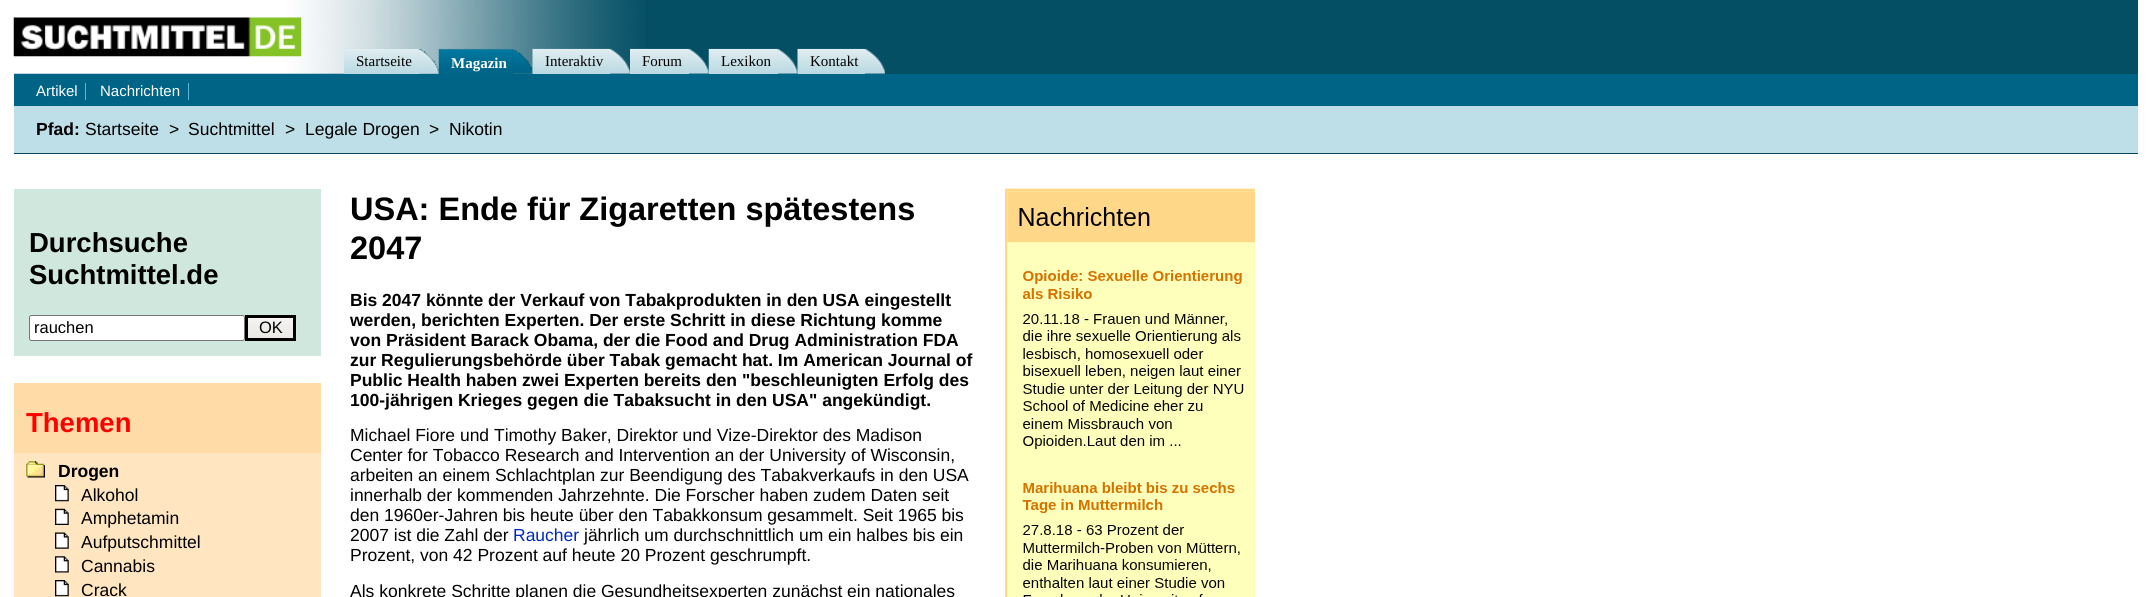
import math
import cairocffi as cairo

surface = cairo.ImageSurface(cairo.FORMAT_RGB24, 2151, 597)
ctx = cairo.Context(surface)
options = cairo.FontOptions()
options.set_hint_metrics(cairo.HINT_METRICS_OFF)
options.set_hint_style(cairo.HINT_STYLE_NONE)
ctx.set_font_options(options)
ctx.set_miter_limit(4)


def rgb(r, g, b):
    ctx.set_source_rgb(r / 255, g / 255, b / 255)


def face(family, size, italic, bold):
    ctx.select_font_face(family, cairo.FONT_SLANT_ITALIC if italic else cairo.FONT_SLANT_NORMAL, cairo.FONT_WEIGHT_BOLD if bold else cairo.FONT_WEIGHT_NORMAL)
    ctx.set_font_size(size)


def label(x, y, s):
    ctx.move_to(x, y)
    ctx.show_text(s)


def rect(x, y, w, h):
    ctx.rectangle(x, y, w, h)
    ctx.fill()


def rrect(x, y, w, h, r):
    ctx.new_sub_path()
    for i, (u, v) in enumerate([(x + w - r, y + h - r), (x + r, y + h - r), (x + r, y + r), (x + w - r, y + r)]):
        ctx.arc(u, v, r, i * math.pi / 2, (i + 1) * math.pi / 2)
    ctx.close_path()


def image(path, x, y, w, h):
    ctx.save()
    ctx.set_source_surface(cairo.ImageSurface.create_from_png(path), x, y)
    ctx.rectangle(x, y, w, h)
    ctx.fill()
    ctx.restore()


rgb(255, 255, 255)
ctx.paint()
rgb(4, 79, 100)
rect(14, 0, 2124, 74)
image('image0.png', 14, 0, 631, 74)
image('image1.png', 13, 17, 289, 40)
rgb(199, 223, 231)
rect(344, 49, 75, 25)
image('image2.png', 344, 49, 75, 25)
face('Liberation Serif', 15, 0, 0)
rgb(0, 0, 0)
label(356, 66, 'Startseite')
image('image3.png', 418, 48, 21, 26)
rgb(0, 100, 134)
rect(439, 49, 74, 25)
image('image4.png', 438, 48, 75, 26)
face('Liberation Serif', 15, 0, 1)
rgb(255, 255, 255)
label(451, 68, 'Magazin')
image('image5.png', 512, 49, 21, 25)
rgb(199, 223, 231)
rect(533, 73, 77, 1)
image('image6.png', 532, 48, 78, 26)
face('Liberation Serif', 15, 0, 0)
rgb(0, 0, 0)
label(545, 66, 'Interaktiv')
image('image7.png', 610, 48, 20, 26)
rgb(199, 223, 231)
rect(630, 49, 59, 25)
image('image8.png', 630, 48, 59, 26)
rgb(0, 0, 0)
label(642, 66, 'Forum')
image('image9.png', 688, 48, 21, 26)
rgb(199, 223, 231)
rect(709, 49, 69, 25)
image('image10.png', 708, 48, 70, 26)
rgb(0, 0, 0)
label(721, 66, 'Lexikon')
image('image11.png', 777, 48, 21, 26)
rgb(199, 223, 231)
rect(798, 73, 67, 1)
image('image12.png', 797, 48, 68, 26)
rgb(0, 0, 0)
label(810, 66, 'Kontakt')
image('image13.png', 865, 48, 20, 26)
rgb(0, 100, 134)
rect(14, 74, 2124, 32)
face('Liberation Sans', 15, 0, 0)
rgb(255, 255, 255)
label(36, 96, 'Artikel')
rgb(88, 184, 215)
rect(85, 83, 1, 17)
rgb(255, 255, 255)
label(100, 96, 'Nachrichten')
rgb(88, 184, 215)
rect(188, 83, 1, 17)
rgb(191, 223, 232)
rect(14, 106, 2124, 47)
rgb(0, 70, 91)
rect(14, 153, 2124, 1)
face('Liberation Sans', 17.5, 0, 1)
rgb(0, 0, 0)
label(36, 135, 'Pfad:')
face('Liberation Sans', 17.5, 0, 0)
label(85, 135, 'Startseite')
label(169, 135, '>')
label(188, 135, 'Suchtmittel')
label(285, 135, '>')
label(305, 135, 'Legale Drogen')
label(429, 135, '>')
label(449, 135, 'Nikotin')
rgb(208, 231, 222)
rect(14, 189, 307, 167)
face('Liberation Sans', 27.5, 0, 1)
rgb(0, 0, 0)
label(29, 252, 'Durchsuche')
label(29, 284, 'Suchtmittel.de')
rgb(255, 255, 255)
rrect(29.5, 315.5, 215, 25, 2)
ctx.fill_preserve()
rgb(118, 118, 118)
ctx.set_line_width(1)
ctx.stroke()
face('Liberation Sans', 16.5, 0, 0)
rgb(0, 0, 0)
label(34, 333, 'rauchen')
image('image14.png', 245, 315, 52, 27)
ctx.rectangle(246.5, 316.5, 48, 23)
ctx.set_line_width(3)
ctx.stroke()
label(259, 333, 'OK')
rgb(255, 219, 168)
rect(14, 383, 307, 70)
face('Liberation Sans', 27.5, 0, 1)
rgb(255, 0, 0)
label(26, 432, 'Themen')
rgb(255, 229, 192)
rect(14, 453, 307, 144)
image('image15.png', 26, 461, 19, 17)
face('Liberation Sans', 17.5, 0, 1)
rgb(0, 0, 0)
label(58, 477, 'Drogen')
image('image16.png', 55, 485, 14, 17)
face('Liberation Sans', 17.5, 0, 0)
label(81, 501, 'Alkohol')
image('image17.png', 55, 508, 14, 17)
label(81, 524, 'Amphetamin')
image('image18.png', 55, 532, 14, 17)
label(81, 548, 'Aufputschmittel')
image('image19.png', 55, 556, 14, 17)
label(81, 572, 'Cannabis')
image('image16.png', 55, 580, 14, 17)
label(81, 596, 'Crack')
face('Liberation Sans', 32.5, 0, 1)
label(350, 220, 'USA: Ende für Zigaretten spätestens')
label(350, 259, '2047')
face('Liberation Sans', 17.5, 0, 1)
label(350, 306, 'Bis 2047 könnte der Verkauf von Tabakprodukten in den USA eingestellt')
label(350, 326, 'werden, berichten Experten. Der erste Schritt in diese Richtung komme')
label(350, 346, 'von Präsident Barack Obama, der die Food and Drug Administration FDA')
label(350, 366, 'zur Regulierungsbehörde über Tabak gemacht hat. Im American Journal of')
label(350, 386, 'Public Health haben zwei Experten bereits den "beschleunigten Erfolg des')
label(350, 406, '100-jährigen Krieges gegen die Tabaksucht in den USA" angekündigt.')
face('Liberation Sans', 17.5, 0, 0)
label(350, 441, 'Michael Fiore und Timothy Baker, Direktor und Vize-Direktor des Madison')
label(350, 461, 'Center for Tobacco Research and Intervention an der University of Wisconsin,')
label(350, 481, 'arbeiten an einem Schlachtplan zur Beendigung des Tabakverkaufs in den USA')
label(350, 501, 'innerhalb der kommenden Jahrzehnte. Die Forscher haben zudem Daten seit')
label(350, 521, 'den 1960er-Jahren bis heute über den Tabakkonsum gesammelt. Seit 1965 bis')
label(350, 541, '2007 ist die Zahl der')
rgb(0, 43, 184)
label(513, 541, 'Raucher')
rgb(0, 0, 0)
label(584, 541, 'jährlich um durchschnittlich um ein halbes bis ein')
label(350, 561, 'Prozent, von 42 Prozent auf heute 20 Prozent geschrumpft.')
label(350, 597, 'Als konkrete Schritte planen die Gesundheitsexperten zunächst ein nationales')
image('image20.png', 1005, 188, 250, 409)
surface.write_to_png('render.png')
